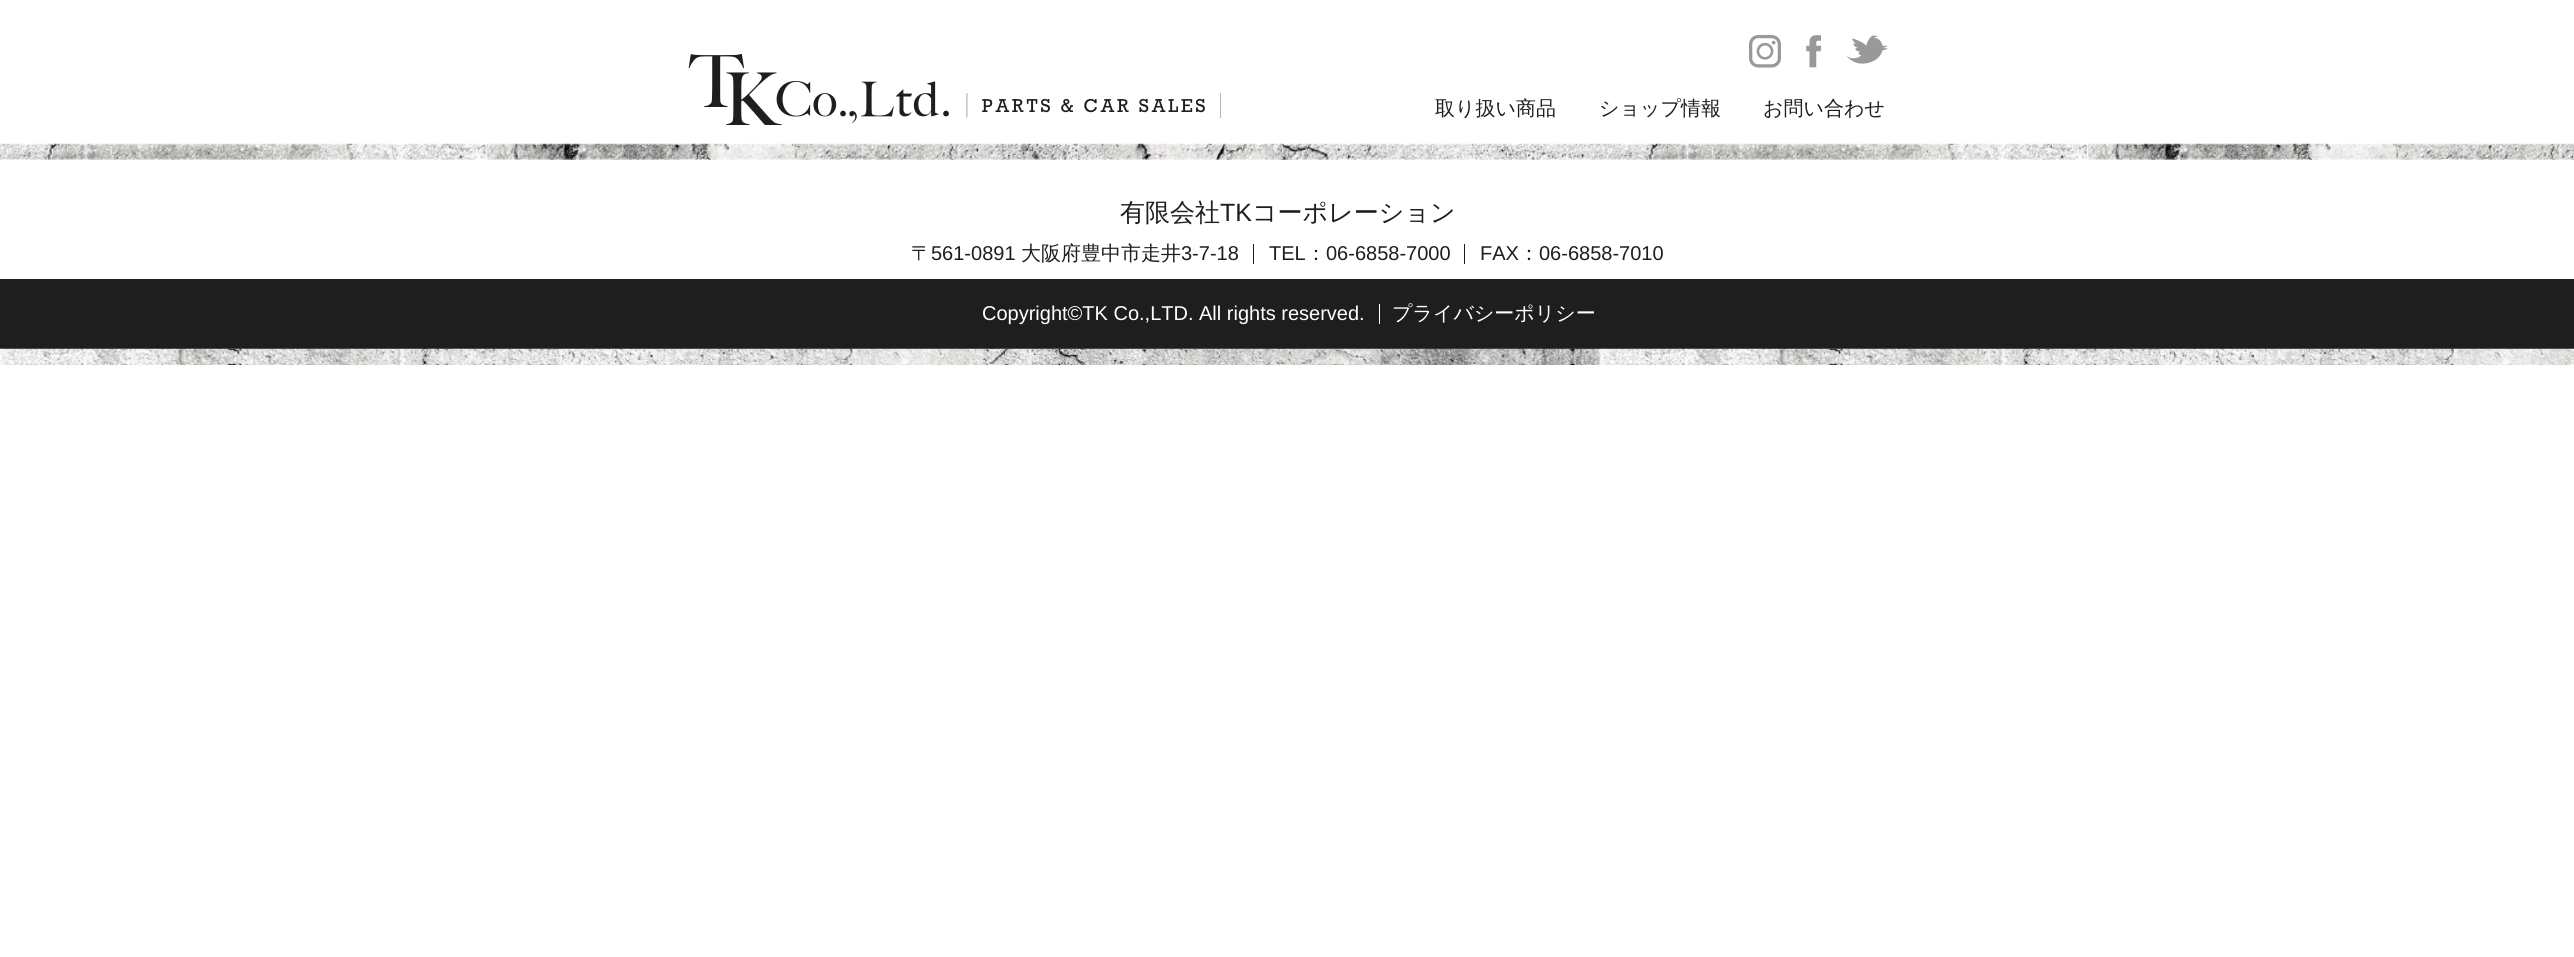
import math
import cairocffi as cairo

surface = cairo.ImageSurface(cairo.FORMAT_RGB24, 2574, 957)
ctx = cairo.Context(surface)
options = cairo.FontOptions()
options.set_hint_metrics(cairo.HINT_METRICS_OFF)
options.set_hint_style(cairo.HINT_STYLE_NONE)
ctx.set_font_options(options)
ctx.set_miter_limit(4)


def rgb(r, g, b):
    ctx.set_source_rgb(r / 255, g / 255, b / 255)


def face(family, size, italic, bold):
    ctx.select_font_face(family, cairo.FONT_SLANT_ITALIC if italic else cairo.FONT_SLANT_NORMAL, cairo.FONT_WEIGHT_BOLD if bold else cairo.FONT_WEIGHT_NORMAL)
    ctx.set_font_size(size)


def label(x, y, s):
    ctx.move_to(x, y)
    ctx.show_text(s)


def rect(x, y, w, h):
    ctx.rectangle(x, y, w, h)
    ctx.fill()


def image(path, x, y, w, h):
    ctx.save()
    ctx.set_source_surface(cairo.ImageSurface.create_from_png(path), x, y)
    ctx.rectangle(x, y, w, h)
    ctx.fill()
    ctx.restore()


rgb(255, 255, 255)
ctx.paint()
image('image0.png', 688, 54, 261, 71)
image('image1.png', 966, 93, 255, 25)
image('image2.png', 1749, 35, 32, 33)
image('image3.png', 1806, 35, 15, 33)
image('image4.png', 1846, 35, 42, 29)
face('WenQuanYi Zen Hei Medium', 20, 0, 0)
rgb(30, 30, 30)
label(1435, 115, '取り扱い商品')
label(1599, 115, 'ショップ情報')
label(1763, 115, 'お問い合わせ')
image('image5.png', 0, 143, 2574, 17)
face('WenQuanYi Zen Hei Medium', 25, 0, 0)
label(1120, 221, '有限会社')
face('Liberation Sans', 25, 0, 0)
label(1220, 221, 'TK')
face('WenQuanYi Zen Hei Medium', 25, 0, 0)
label(1252, 221, 'コーポレーション')
face('WenQuanYi Zen Hei Medium', 20, 0, 0)
label(911, 260, '〒')
face('Liberation Sans', 20, 0, 0)
label(931, 260, '561-0891')
face('WenQuanYi Zen Hei Medium', 20, 0, 0)
label(1021, 260, '大阪府豊中市走井')
face('Liberation Sans', 20, 0, 0)
label(1181, 260, '3-7-18')
rect(1253, 244, 1, 20)
label(1269, 260, 'TEL')
face('WenQuanYi Zen Hei Medium', 20, 0, 0)
label(1306, 260, '：')
face('Liberation Sans', 20, 0, 0)
label(1326, 260, '06-6858-7000')
rect(1464, 244, 1, 20)
label(1480, 260, 'FAX')
face('WenQuanYi Zen Hei Medium', 20, 0, 0)
label(1519, 260, '：')
face('Liberation Sans', 20, 0, 0)
label(1539, 260, '06-6858-7010')
rect(0, 279, 2574, 70)
rgb(255, 255, 255)
label(982, 320, 'Copyright©TK Co.,LTD. All rights reserved.')
rect(1379, 304, 1, 20)
face('WenQuanYi Zen Hei Medium', 20, 0, 0)
label(1392, 320, 'プライバシーポリシー')
image('image6.png', 0, 348, 2574, 17)
surface.write_to_png('render.png')
